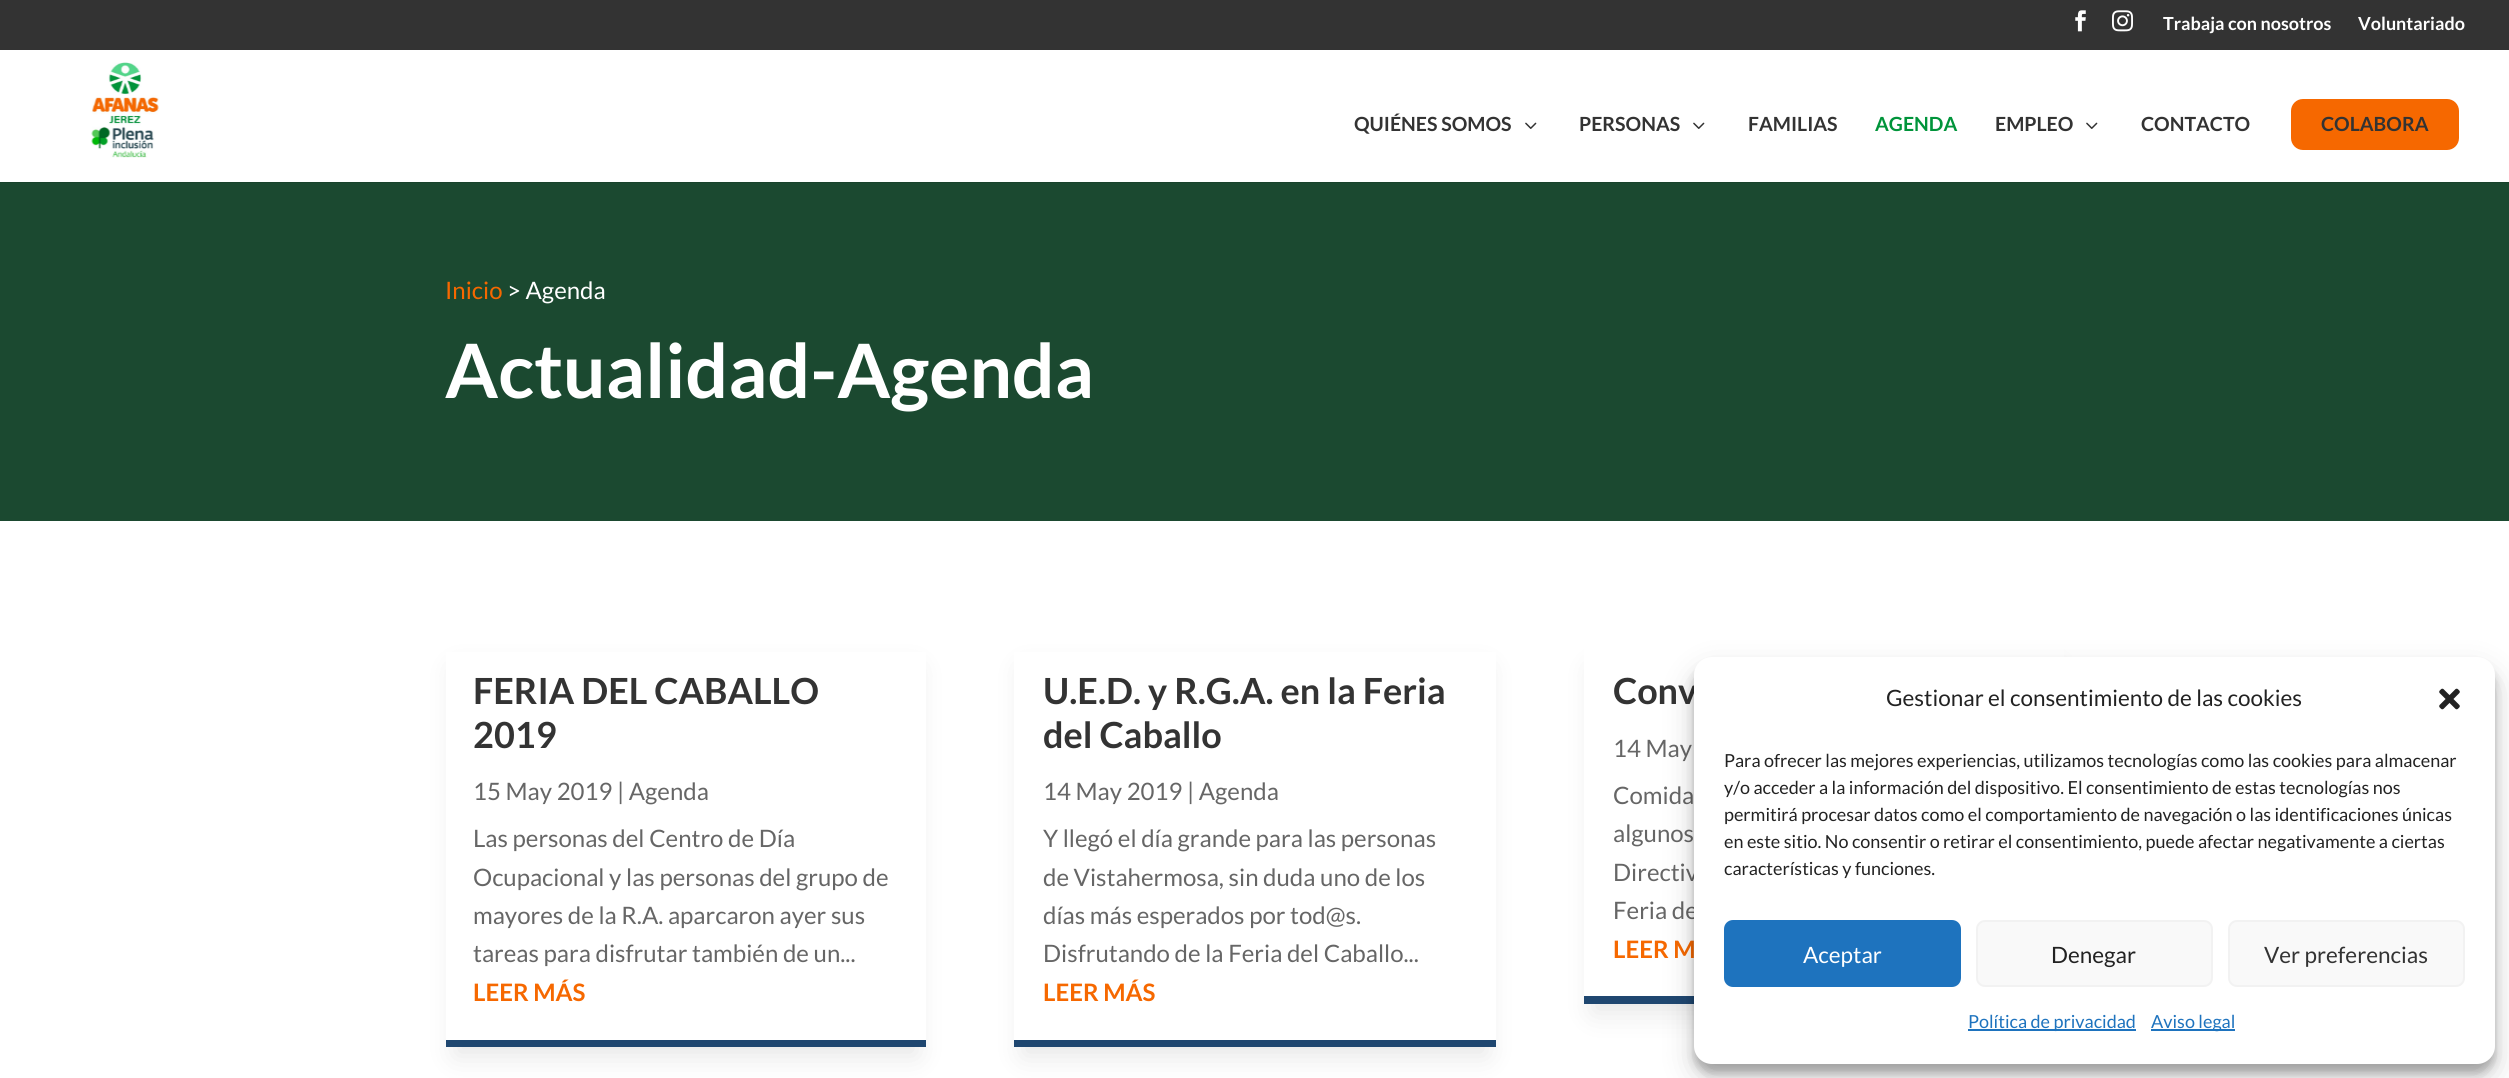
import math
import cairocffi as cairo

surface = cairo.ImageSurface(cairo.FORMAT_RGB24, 2509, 1078)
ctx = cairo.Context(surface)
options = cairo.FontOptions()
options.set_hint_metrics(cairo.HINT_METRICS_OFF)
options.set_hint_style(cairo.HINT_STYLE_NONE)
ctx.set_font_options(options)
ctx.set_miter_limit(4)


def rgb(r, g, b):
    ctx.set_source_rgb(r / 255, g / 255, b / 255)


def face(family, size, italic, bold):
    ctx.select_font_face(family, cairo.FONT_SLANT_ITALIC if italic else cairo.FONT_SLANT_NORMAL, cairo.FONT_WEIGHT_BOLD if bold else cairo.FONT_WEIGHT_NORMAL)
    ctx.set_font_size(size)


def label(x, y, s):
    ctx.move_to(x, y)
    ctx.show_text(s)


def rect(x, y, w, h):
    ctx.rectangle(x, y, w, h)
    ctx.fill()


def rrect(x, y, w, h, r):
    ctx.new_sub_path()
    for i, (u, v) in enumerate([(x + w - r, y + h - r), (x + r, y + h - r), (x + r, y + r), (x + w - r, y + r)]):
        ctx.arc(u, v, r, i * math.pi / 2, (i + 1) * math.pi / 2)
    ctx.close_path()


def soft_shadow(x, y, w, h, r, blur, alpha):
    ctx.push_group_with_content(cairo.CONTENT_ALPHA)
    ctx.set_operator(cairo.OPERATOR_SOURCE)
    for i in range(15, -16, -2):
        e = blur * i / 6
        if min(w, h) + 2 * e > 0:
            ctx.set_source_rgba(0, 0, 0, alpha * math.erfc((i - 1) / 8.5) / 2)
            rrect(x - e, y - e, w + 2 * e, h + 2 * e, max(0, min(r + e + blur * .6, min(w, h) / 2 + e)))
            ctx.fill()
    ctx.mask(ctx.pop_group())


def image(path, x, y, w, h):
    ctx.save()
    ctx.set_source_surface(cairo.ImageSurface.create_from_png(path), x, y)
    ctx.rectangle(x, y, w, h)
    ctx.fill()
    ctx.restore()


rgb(27, 73, 48)
ctx.paint()
rgb(51, 51, 51)
rect(0, 0, 2509, 50)
image('image0.png', 2075, 10, 11, 22)
image('image1.png', 2112, 10, 21, 22)
face('Lato', 18, 0, 1)
rgb(255, 255, 255)
label(2163, 30, 'Trabaja con nosotros')
label(2358, 30, 'Voluntariado')
rgb(24, 66, 43)
ctx.new_path()
ctx.move_to(0, 182)
ctx.line_to(0, 183)
ctx.line_to(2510, 183)
ctx.line_to(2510, 51)
ctx.line_to(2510, 182)
ctx.close_path()
ctx.fill()
rgb(255, 255, 255)
rect(0, 50, 2509, 132)
image('image2.png', 91, 62, 68, 96)
face('Lato', 19.5, 0, 1)
rgb(51, 51, 51)
label(1354, 131, 'QUIÉNES SOMOS')
image('image3.png', 1525, 122, 12, 7)
label(1579, 131, 'PERSONAS')
image('image3.png', 1693, 122, 12, 7)
label(1748, 131, 'FAMILIAS')
rgb(0, 148, 58)
label(1875, 131, 'AGENDA')
rgb(51, 51, 51)
label(1995, 131, 'EMPLEO')
image('image3.png', 2086, 122, 12, 7)
label(2141, 131, 'CONTACTO')
rgb(246, 104, 0)
rrect(2289.5, 97.5, 171, 54, 13.5)
ctx.fill_preserve()
rgb(255, 255, 255)
ctx.set_line_width(3)
ctx.stroke()
rgb(51, 51, 51)
label(2321, 131, 'COLABORA')
face('Lato', 24, 0, 0)
rgb(246, 104, 0)
label(445, 299, 'Inicio')
rgb(255, 255, 255)
label(507, 299, '> Agenda')
face('Lato', 75, 0, 1)
label(445, 398, 'Actualidad-Agenda')
rect(0, 521, 2509, 557)
rgb(0, 0, 0)
soft_shadow(455, 669, 462, 387, 0, 13.5, 0.1)
rgb(255, 255, 255)
rect(446, 652, 480, 388)
rgb(31, 71, 112)
rect(446, 1040, 480, 7)
face('Lato', 36, 0, 1)
rgb(51, 51, 51)
label(473, 704, 'FERIA DEL CABALLO')
label(473, 748, '2019')
face('Lato', 24, 0, 0)
rgb(102, 102, 102)
label(473, 800, '15 May 2019 | Agenda')
label(473, 847, 'Las personas del Centro de Día')
label(473, 886, 'Ocupacional y las personas del grupo de')
label(473, 924, 'mayores de la R.A. aparcaron ayer sus')
label(473, 962, 'tareas para disfrutar también de un...')
face('Lato', 24, 0, 1)
rgb(246, 104, 0)
label(473, 1001, 'LEER MÁS')
rgb(0, 0, 0)
soft_shadow(1023, 669, 464, 387, 0, 13.5, 0.1)
rgb(255, 255, 255)
rect(1014, 652, 482, 388)
rgb(31, 71, 112)
rect(1014, 1040, 482, 7)
face('Lato', 36, 0, 1)
rgb(51, 51, 51)
label(1043, 704, 'U.E.D. y R.G.A. en la Feria')
label(1043, 748, 'del Caballo')
face('Lato', 24, 0, 0)
rgb(102, 102, 102)
label(1043, 800, '14 May 2019 | Agenda')
label(1043, 847, 'Y llegó el día grande para las personas')
label(1043, 886, 'de Vistahermosa, sin duda uno de los')
label(1043, 924, 'días más esperados por tod@s.')
label(1043, 962, 'Disfrutando de la Feria del Caballo...')
face('Lato', 24, 0, 1)
rgb(246, 104, 0)
label(1043, 1001, 'LEER MÁS')
ctx.save()
ctx.set_fill_rule(cairo.FILL_RULE_EVEN_ODD)
ctx.new_path()
ctx.move_to(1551, 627)
ctx.line_to(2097, 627)
ctx.line_to(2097, 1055)
ctx.line_to(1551, 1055)
ctx.close_path()
ctx.move_to(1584, 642)
ctx.line_to(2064, 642)
ctx.line_to(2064, 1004)
ctx.line_to(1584, 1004)
ctx.close_path()
ctx.clip()
rgb(0, 0, 0)
soft_shadow(1593, 669, 462, 344, 0, 13.5, 0.1)
ctx.restore()
rgb(31, 71, 112)
rect(1584, 996, 110, 8)
face('Lato', 36, 0, 1)
rgb(51, 51, 51)
label(1613, 704, 'Conv')
face('Lato', 24, 0, 0)
rgb(102, 102, 102)
label(1613, 757, '14 May')
label(1613, 804, 'Comida')
label(1613, 842, 'algunos')
label(1613, 881, 'Directiv')
label(1613, 919, 'Feria de')
face('Lato', 24, 0, 1)
rgb(246, 104, 0)
label(1613, 958, 'LEER M')
rgb(0, 0, 0)
soft_shadow(1694, 666, 801, 407, 18, 4.5, 0.23)
soft_shadow(1694, 672, 801, 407, 18, 15, 0.19)
rgb(255, 255, 255)
rrect(1694, 657, 801, 407, 18)
ctx.fill()
face('Lato', 22.5, 0, 0)
rgb(34, 34, 34)
label(1886, 706, 'Gestionar el consentimiento de las cookies')
image('image4.png', 2439, 688, 21, 22)
face('Lato', 18, 0, 0)
label(1724, 767, 'Para ofrecer las mejores experiencias, utilizamos tecnologías como las cookies para almacenar')
label(1724, 794, 'y/o acceder a la información del dispositivo. El consentimiento de estas tecnologías nos')
label(1724, 821, 'permitirá procesar datos como el comportamiento de navegación o las identificaciones únicas')
label(1724, 848, 'en este sitio. No consentir o retirar el consentimiento, puede afectar negativamente a ciertas')
label(1724, 875, 'características y funciones.')
rgb(30, 115, 190)
rrect(1725, 921, 235, 65, 8)
ctx.fill_preserve()
ctx.set_line_width(2)
ctx.stroke()
face('Lato', 22.5, 0, 0)
rgb(255, 255, 255)
label(1803, 963, 'Aceptar')
rgb(249, 249, 249)
rrect(1977, 921, 235, 65, 8)
ctx.fill_preserve()
rgb(242, 242, 242)
ctx.stroke()
rgb(34, 34, 34)
label(2051, 963, 'Denegar')
rgb(249, 249, 249)
rrect(2229, 921, 235, 65, 8)
ctx.fill_preserve()
rgb(242, 242, 242)
ctx.stroke()
rgb(51, 51, 51)
label(2264, 963, 'Ver preferencias')
rgb(30, 115, 190)
rect(1968, 1029, 168, 2)
face('Lato', 18, 0, 0)
label(1968, 1028, 'Política de privacidad')
rect(2151, 1029, 84, 2)
label(2151, 1028, 'Aviso legal')
surface.write_to_png('render.png')
